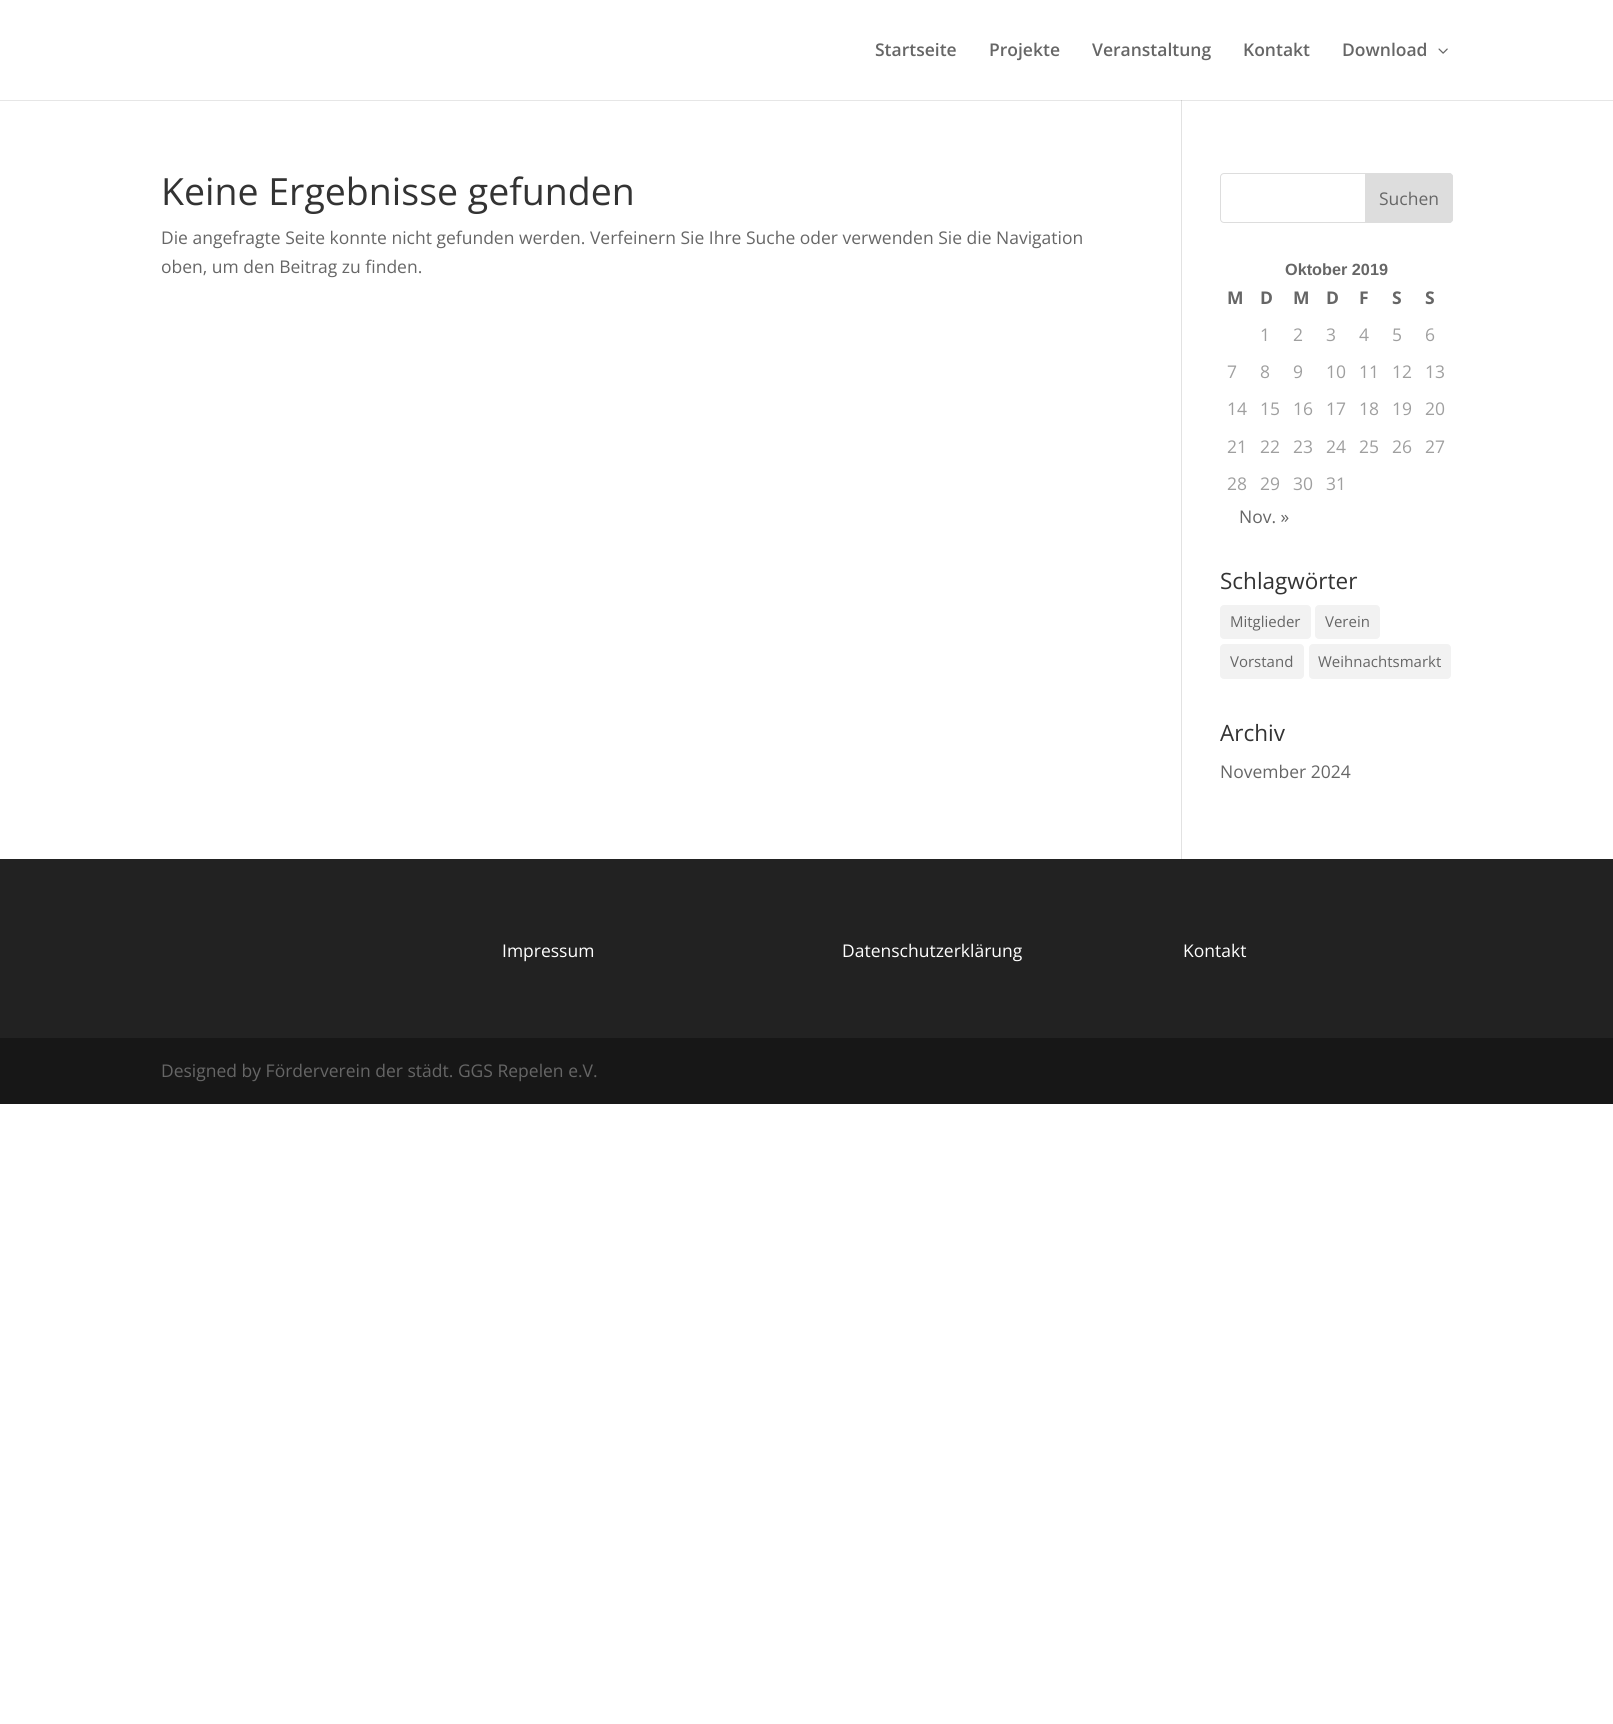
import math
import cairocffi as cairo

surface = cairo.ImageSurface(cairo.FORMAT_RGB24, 1613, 1724)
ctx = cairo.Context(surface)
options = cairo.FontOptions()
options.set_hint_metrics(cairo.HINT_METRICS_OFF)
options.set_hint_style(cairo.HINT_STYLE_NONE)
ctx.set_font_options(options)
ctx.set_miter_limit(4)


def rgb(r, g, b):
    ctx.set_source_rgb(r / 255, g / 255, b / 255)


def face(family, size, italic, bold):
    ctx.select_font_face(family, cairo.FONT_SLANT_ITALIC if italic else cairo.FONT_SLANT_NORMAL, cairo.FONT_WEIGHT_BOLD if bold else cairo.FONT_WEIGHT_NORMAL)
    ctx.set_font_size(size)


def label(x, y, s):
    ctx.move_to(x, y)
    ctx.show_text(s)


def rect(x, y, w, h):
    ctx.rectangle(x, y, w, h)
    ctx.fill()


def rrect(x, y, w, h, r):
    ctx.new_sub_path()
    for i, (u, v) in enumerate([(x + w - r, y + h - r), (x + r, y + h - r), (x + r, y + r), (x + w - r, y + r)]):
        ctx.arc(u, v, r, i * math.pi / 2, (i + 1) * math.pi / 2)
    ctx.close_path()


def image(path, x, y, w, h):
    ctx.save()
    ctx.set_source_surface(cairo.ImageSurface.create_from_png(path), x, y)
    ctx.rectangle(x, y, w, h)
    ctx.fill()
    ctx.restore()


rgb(255, 255, 255)
ctx.paint()
rgb(226, 226, 226)
rect(1181, 100, 1, 759)
ctx.set_source_rgba(0, 0, 0, 0.1)
ctx.new_path()
ctx.move_to(0, 100)
ctx.line_to(0, 101)
ctx.line_to(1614, 101)
ctx.line_to(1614, 1)
ctx.line_to(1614, 100)
ctx.close_path()
ctx.fill()
face('Open Sans SemiBold', 17.5, 0, 0)
rgb(102, 102, 102)
label(875, 56, 'Startseite')
label(989, 56, 'Projekte')
label(1092, 56, 'Veranstaltung')
label(1243, 56, 'Kontakt')
label(1342, 56, 'Download')
image('image0.png', 1438, 48, 10, 6)
face('Open Sans', 37.5, 0, 0)
rgb(51, 51, 51)
label(161, 205, 'Keine Ergebnisse gefunden')
face('Open Sans', 17.5, 0, 0)
rgb(102, 102, 102)
label(161, 244, 'Die angefragte Seite konnte nicht gefunden werden. Verfeinern Sie Ihre Suche oder verwenden Sie die Navigation')
label(161, 273, 'oben, um den Beitrag zu finden.')
rrect(1220.5, 173.5, 232, 49, 3.5)
rgb(221, 221, 221)
ctx.set_line_width(1)
ctx.stroke()
ctx.new_path()
ctx.move_to(1365.5, 173.5)
ctx.line_to(1449, 173.5)
ctx.curve_to(1451, 173.5, 1452.5, 175, 1452.5, 177)
ctx.line_to(1452.5, 219)
ctx.curve_to(1452.5, 221, 1451, 222.5, 1449, 222.5)
ctx.line_to(1365.5, 222.5)
ctx.close_path()
ctx.fill_preserve()
ctx.stroke()
rgb(102, 102, 102)
label(1379, 205, 'Suchen')
face('Liberation Sans', 16.25, 0, 1)
label(1285, 275, 'Oktober 2019')
face('Open Sans', 17.5, 0, 1)
label(1227, 304, 'M')
label(1260, 304, 'D')
label(1293, 304, 'M')
label(1326, 304, 'D')
label(1359, 304, 'F')
label(1392, 304, 'S')
label(1425, 304, 'S')
face('Open Sans', 17.5, 0, 0)
rgb(159, 159, 159)
label(1260, 341, '1')
label(1293, 341, '2')
label(1326, 341, '3')
label(1359, 341, '4')
label(1392, 341, '5')
label(1425, 341, '6')
label(1227, 378, '7')
label(1260, 378, '8')
label(1293, 378, '9')
label(1326, 378, '10')
label(1359, 378, '11')
label(1392, 378, '12')
label(1425, 378, '13')
label(1227, 415, '14')
label(1260, 415, '15')
label(1293, 415, '16')
label(1326, 415, '17')
label(1359, 415, '18')
label(1392, 415, '19')
label(1425, 415, '20')
label(1227, 453, '21')
label(1260, 453, '22')
label(1293, 453, '23')
label(1326, 453, '24')
label(1359, 453, '25')
label(1392, 453, '26')
label(1425, 453, '27')
label(1227, 490, '28')
label(1260, 490, '29')
label(1293, 490, '30')
label(1326, 490, '31')
rgb(102, 102, 102)
label(1239, 523, 'Nov. »')
face('Open Sans', 22.5, 0, 0)
rgb(51, 51, 51)
label(1220, 589, 'Schlagwörter')
rgb(242, 242, 242)
rrect(1220, 605, 91, 34, 4)
ctx.fill()
face('Open Sans', 15, 0, 0)
rgb(102, 102, 102)
label(1230, 627, 'Mitglieder')
rgb(242, 242, 242)
rrect(1315, 605, 65, 34, 4)
ctx.fill()
rgb(102, 102, 102)
label(1325, 627, 'Verein')
rgb(242, 242, 242)
rrect(1220, 644, 84, 35, 4)
ctx.fill()
rgb(102, 102, 102)
label(1230, 667, 'Vorstand')
rgb(242, 242, 242)
rrect(1309, 644, 142, 35, 4)
ctx.fill()
rgb(102, 102, 102)
label(1318, 667, 'Weihnachtsmarkt')
face('Open Sans', 22.5, 0, 0)
rgb(51, 51, 51)
label(1220, 741, 'Archiv')
face('Open Sans', 17.5, 0, 0)
rgb(102, 102, 102)
label(1220, 778, 'November 2024')
rgb(34, 34, 34)
rect(0, 859, 1613, 179)
rgb(255, 255, 255)
label(502, 957, 'Impressum')
label(842, 957, 'Datenschutzerklärung')
label(1183, 957, 'Kontakt')
rgb(23, 23, 23)
rect(0, 1038, 1613, 66)
rgb(102, 102, 102)
label(161, 1077, 'Designed by Förderverein der städt. GGS Repelen e.V.')
surface.write_to_png('render.png')
